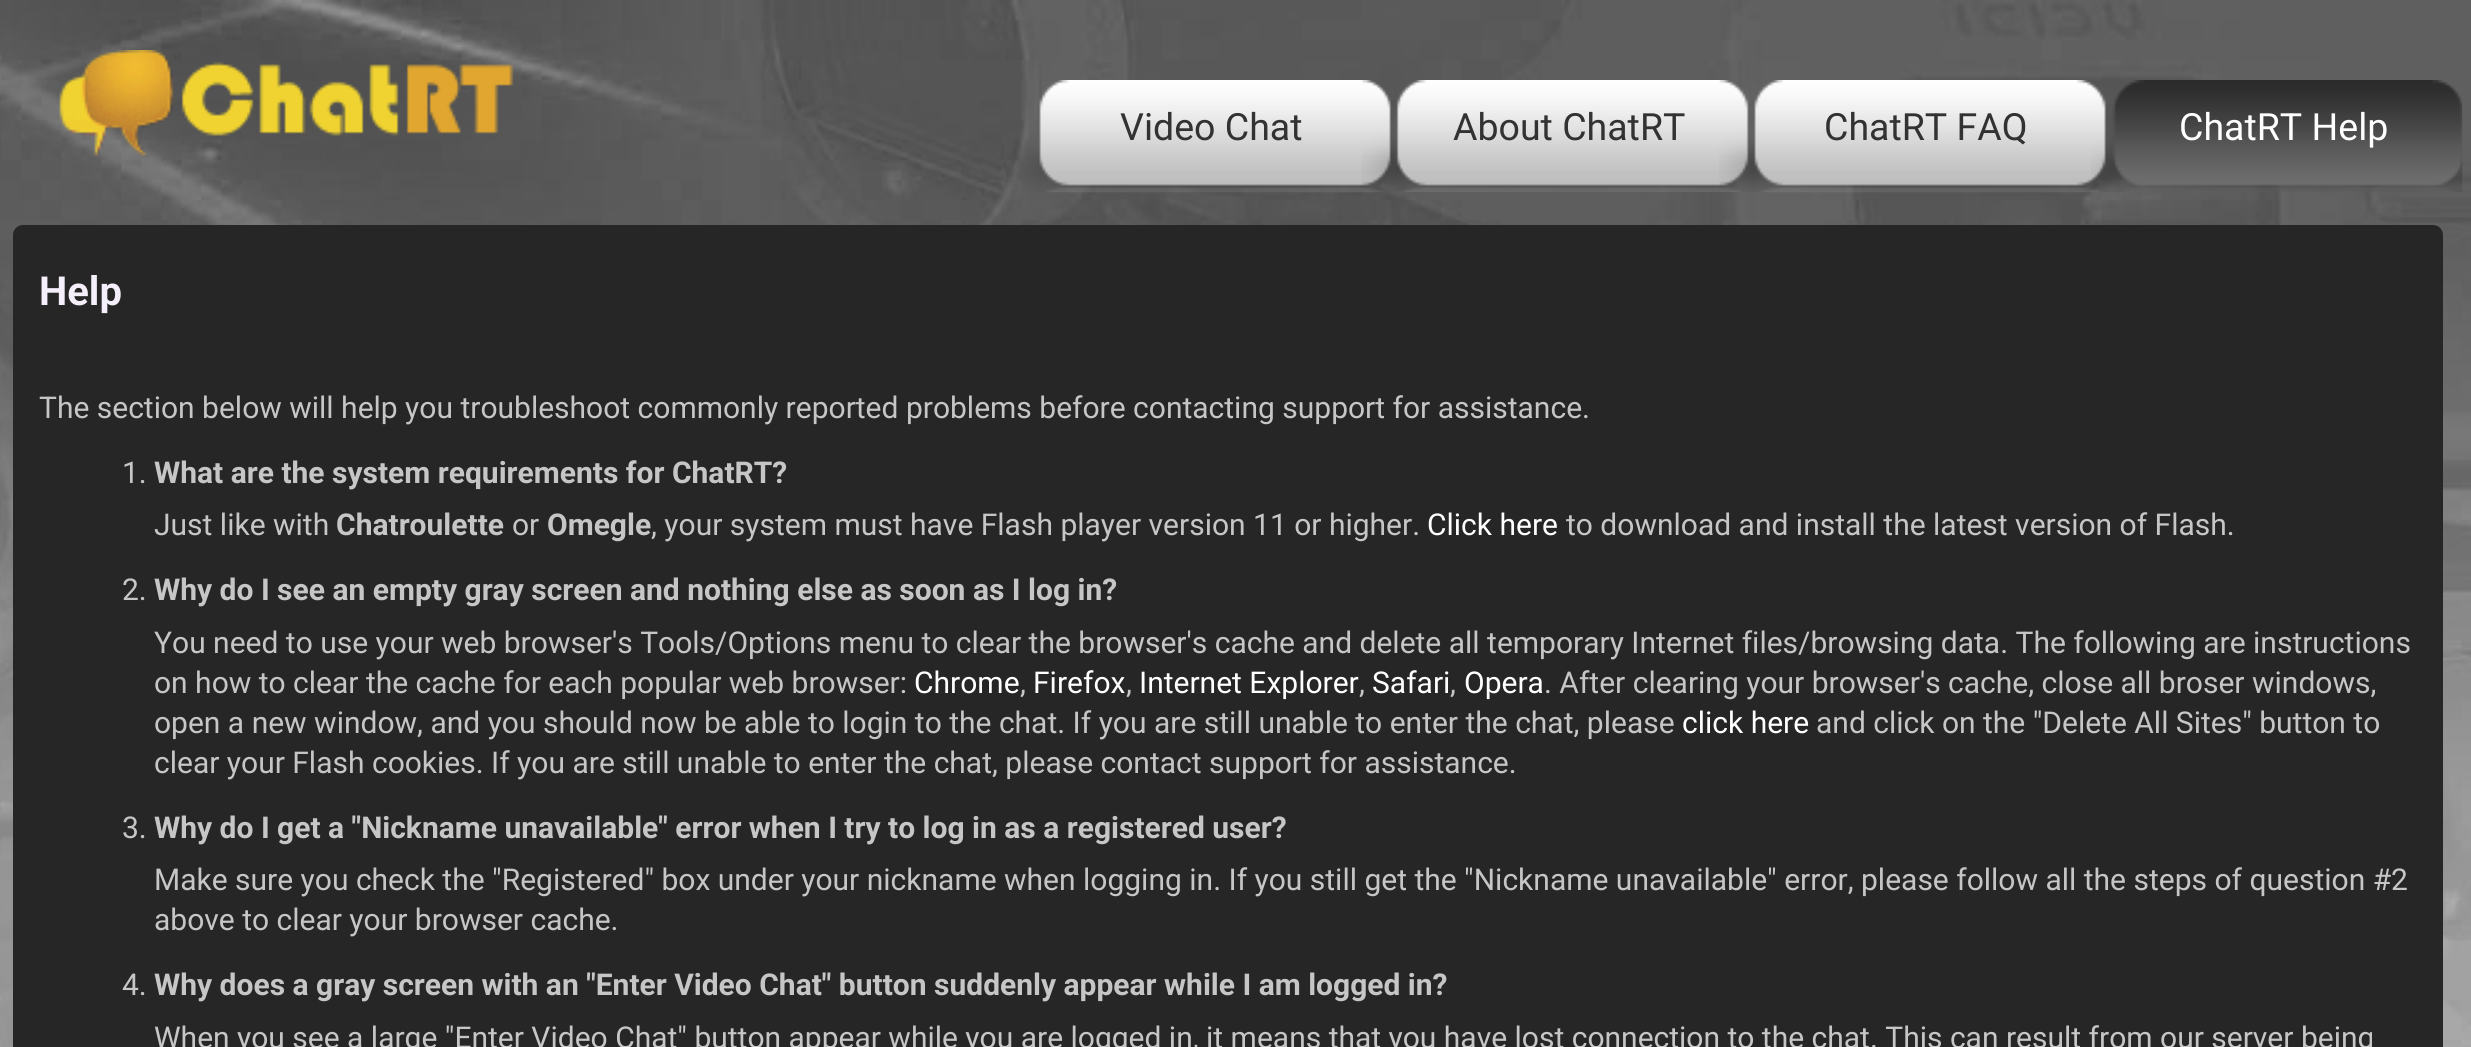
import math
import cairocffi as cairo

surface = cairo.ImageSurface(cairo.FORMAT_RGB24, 2471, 1047)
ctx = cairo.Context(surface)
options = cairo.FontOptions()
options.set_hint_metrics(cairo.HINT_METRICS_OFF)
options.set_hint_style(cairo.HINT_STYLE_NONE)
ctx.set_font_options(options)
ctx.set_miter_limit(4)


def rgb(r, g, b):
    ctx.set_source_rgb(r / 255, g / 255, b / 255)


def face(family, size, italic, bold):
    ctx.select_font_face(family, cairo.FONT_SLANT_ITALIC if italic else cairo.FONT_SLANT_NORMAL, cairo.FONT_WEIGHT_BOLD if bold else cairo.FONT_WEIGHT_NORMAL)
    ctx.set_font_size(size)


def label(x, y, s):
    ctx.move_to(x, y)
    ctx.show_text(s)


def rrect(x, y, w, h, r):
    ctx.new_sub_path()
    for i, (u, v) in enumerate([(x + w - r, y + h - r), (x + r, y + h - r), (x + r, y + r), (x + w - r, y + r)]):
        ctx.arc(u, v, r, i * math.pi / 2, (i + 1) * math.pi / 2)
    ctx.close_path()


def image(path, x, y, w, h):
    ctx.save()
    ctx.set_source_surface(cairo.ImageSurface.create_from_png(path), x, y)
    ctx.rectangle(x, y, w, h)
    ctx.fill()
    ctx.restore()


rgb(255, 255, 255)
ctx.paint()
image('image0.png', 0, 0, 2471, 1047)
image('image1.png', 59, 50, 455, 108)
image('image2.png', 1011, 80, 413, 113)
face('Roboto', 37.5, 0, 0)
rgb(50, 50, 50)
label(1120, 140, 'Video Chat')
image('image3.png', 1361, 80, 420, 112)
label(1453, 140, 'About ChatRT')
image('image4.png', 1719, 80, 419, 113)
label(1824, 140, 'ChatRT FAQ')
image('image5.png', 2091, 80, 372, 112)
rgb(255, 255, 255)
label(2179, 140, 'ChatRT Help')
rgb(38, 38, 38)
rrect(13, 225, 2430, 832, 10)
ctx.fill()
face('Roboto', 40, 0, 1)
rgb(245, 238, 251)
label(39, 305, 'Help')
face('Roboto', 30, 0, 0)
rgb(198, 198, 198)
label(39, 418, 'The section below will help you troubleshoot commonly reported problems before contacting support for assistance.')
label(122, 483, '1.')
face('Roboto', 30, 0, 1)
label(154, 483, 'What are the system requirements for ChatRT?')
face('Roboto', 30, 0, 0)
label(154, 535, 'Just like with')
face('Roboto', 30, 0, 1)
label(336, 535, 'Chatroulette')
face('Roboto', 30, 0, 0)
label(512, 535, 'or')
face('Roboto', 30, 0, 1)
label(547, 535, 'Omegle')
face('Roboto', 30, 0, 0)
label(651, 535, ', your system must have Flash player version 11 or higher.')
rgb(255, 255, 255)
label(1427, 535, 'Click here')
rgb(198, 198, 198)
label(1566, 535, 'to download and install the latest version of Flash.')
label(122, 600, '2.')
face('Roboto', 30, 0, 1)
label(154, 600, 'Why do I see an empty gray screen and nothing else as soon as I log in?')
face('Roboto', 30, 0, 0)
label(154, 653, 'You need to use your web browser\'s Tools/Options menu to clear the browser\'s cache and delete all temporary Internet files/browsing data. The following are instructions')
label(154, 693, 'on how to clear the cache for each popular web browser:')
rgb(255, 255, 255)
label(914, 693, 'Chrome')
rgb(198, 198, 198)
label(1020, 693, ',')
rgb(255, 255, 255)
label(1033, 693, 'Firefox')
rgb(198, 198, 198)
label(1126, 693, ',')
rgb(255, 255, 255)
label(1139, 693, 'Internet Explorer')
rgb(198, 198, 198)
label(1359, 693, ',')
rgb(255, 255, 255)
label(1372, 693, 'Safari')
rgb(198, 198, 198)
label(1450, 693, ',')
rgb(255, 255, 255)
label(1464, 693, 'Opera')
rgb(198, 198, 198)
label(1544, 693, '. After clearing your browser\'s cache, close all broser windows,')
label(154, 733, 'open a new window, and you should now be able to login to the chat. If you are still unable to enter the chat, please')
rgb(255, 255, 255)
label(1682, 733, 'click here')
rgb(198, 198, 198)
label(1816, 733, 'and click on the "Delete All Sites" button to')
label(154, 773, 'clear your Flash cookies. If you are still unable to enter the chat, please contact support for assistance.')
label(122, 838, '3.')
face('Roboto', 30, 0, 1)
label(154, 838, 'Why do I get a "Nickname unavailable" error when I try to log in as a registered user?')
face('Roboto', 30, 0, 0)
label(154, 890, 'Make sure you check the "Registered" box under your nickname when logging in. If you still get the "Nickname unavailable" error, please follow all the steps of question #2')
label(154, 930, 'above to clear your browser cache.')
label(122, 995, '4.')
face('Roboto', 30, 0, 1)
label(154, 995, 'Why does a gray screen with an "Enter Video Chat" button suddenly appear while I am logged in?')
face('Roboto', 30, 0, 0)
label(154, 1048, 'When you see a large "Enter Video Chat" button appear while you are logged in, it means that you have lost connection to the chat. This can result from our server being')
surface.write_to_png('render.png')
